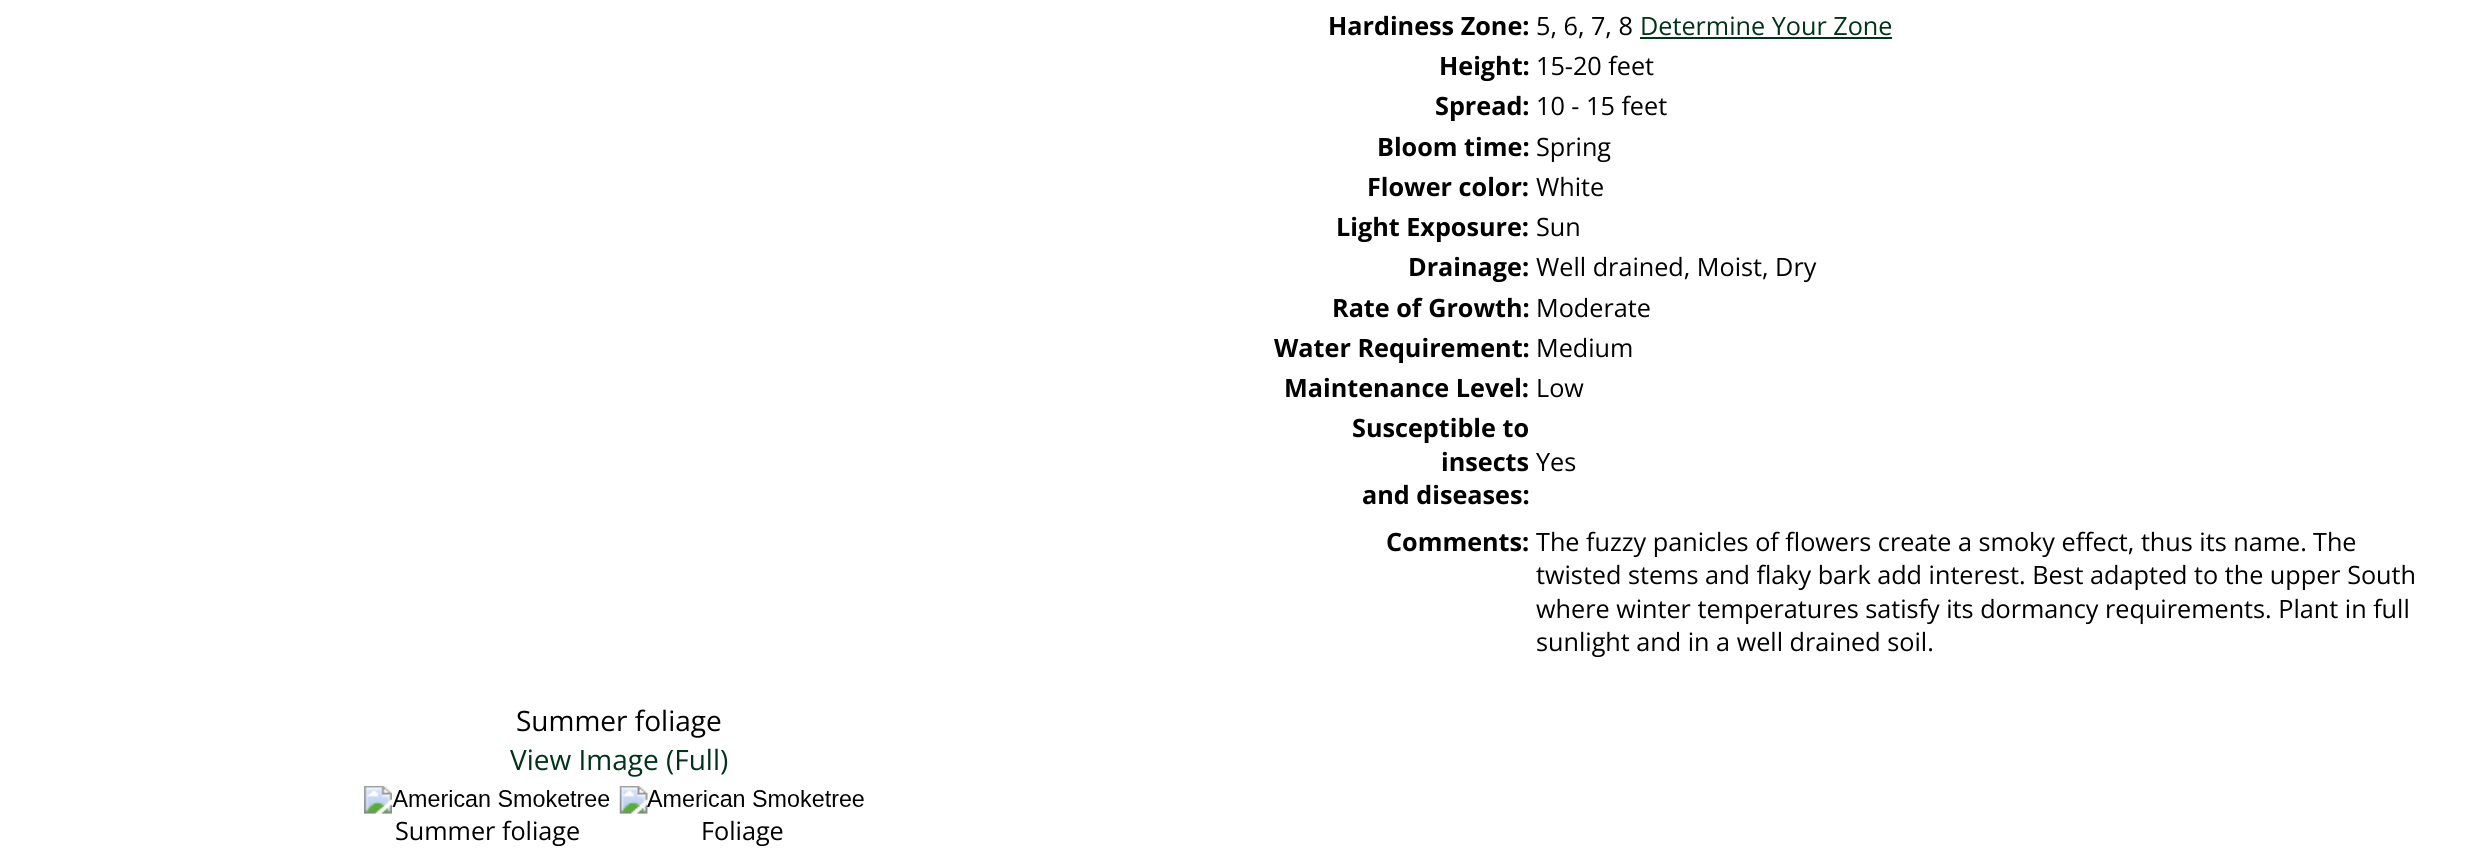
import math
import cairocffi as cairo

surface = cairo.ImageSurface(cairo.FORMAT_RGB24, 2475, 863)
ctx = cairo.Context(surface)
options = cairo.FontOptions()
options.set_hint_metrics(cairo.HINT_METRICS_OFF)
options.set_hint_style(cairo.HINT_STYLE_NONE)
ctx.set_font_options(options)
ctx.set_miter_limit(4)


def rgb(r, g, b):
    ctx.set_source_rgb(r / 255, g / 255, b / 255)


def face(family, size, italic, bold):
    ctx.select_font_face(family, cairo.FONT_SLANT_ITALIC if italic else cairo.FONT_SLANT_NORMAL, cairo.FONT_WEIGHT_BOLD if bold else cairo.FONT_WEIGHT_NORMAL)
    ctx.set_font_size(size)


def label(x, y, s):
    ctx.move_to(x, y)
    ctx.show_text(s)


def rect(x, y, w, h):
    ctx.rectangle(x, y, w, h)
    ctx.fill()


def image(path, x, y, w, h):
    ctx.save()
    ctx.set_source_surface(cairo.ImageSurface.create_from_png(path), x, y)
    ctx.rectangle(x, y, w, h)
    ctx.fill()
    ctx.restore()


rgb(255, 255, 255)
ctx.paint()
face('Open Sans', 25.2, 0, 1)
rgb(0, 0, 0)
label(1328, 35, 'Hardiness Zone:')
face('Open Sans', 25.2, 0, 0)
label(1536, 35, '5, 6, 7, 8')
rgb(0, 51, 26)
label(1640, 35, 'Determine Your Zone')
rect(1640, 37, 252, 2)
face('Open Sans', 25.2, 0, 1)
rgb(0, 0, 0)
label(1439, 75, 'Height:')
face('Open Sans', 25.2, 0, 0)
label(1536, 75, '15-20 feet')
face('Open Sans', 25.2, 0, 1)
label(1435, 115, 'Spread:')
face('Open Sans', 25.2, 0, 0)
label(1536, 115, '10 - 15 feet')
face('Open Sans', 25.2, 0, 1)
label(1377, 156, 'Bloom time:')
face('Open Sans', 25.2, 0, 0)
label(1536, 156, 'Spring')
face('Open Sans', 25.2, 0, 1)
label(1367, 196, 'Flower color:')
face('Open Sans', 25.2, 0, 0)
label(1536, 196, 'White')
face('Open Sans', 25.2, 0, 1)
label(1336, 236, 'Light Exposure:')
face('Open Sans', 25.2, 0, 0)
label(1536, 236, 'Sun')
face('Open Sans', 25.2, 0, 1)
label(1408, 276, 'Drainage:')
face('Open Sans', 25.2, 0, 0)
label(1536, 276, 'Well drained, Moist, Dry')
face('Open Sans', 25.2, 0, 1)
label(1332, 317, 'Rate of Growth:')
face('Open Sans', 25.2, 0, 0)
label(1536, 317, 'Moderate')
face('Open Sans', 25.2, 0, 1)
label(1274, 357, 'Water Requirement:')
face('Open Sans', 25.2, 0, 0)
label(1536, 357, 'Medium')
face('Open Sans', 25.2, 0, 1)
label(1284, 397, 'Maintenance Level:')
face('Open Sans', 25.2, 0, 0)
label(1536, 397, 'Low')
face('Open Sans', 25.2, 0, 1)
label(1352, 437, 'Susceptible to')
label(1441, 471, 'insects')
label(1362, 504, 'and diseases:')
face('Open Sans', 25.2, 0, 0)
label(1536, 471, 'Yes')
face('Open Sans', 25.2, 0, 1)
label(1386, 551, 'Comments:')
face('Open Sans', 25.2, 0, 0)
label(1536, 551, 'The fuzzy panicles of flowers create a smoky effect, thus its name.')
label(2313, 551, 'The')
label(1536, 584, 'twisted stems and flaky bark add interest. Best adapted to the upper South')
label(1536, 618, 'where winter temperatures satisfy its dormancy requirements. Plant in full')
label(1536, 651, 'sunlight and in a well drained soil.')
face('Open Sans', 28, 0, 0)
label(516, 731, 'Summer foliage')
rgb(0, 51, 26)
label(510, 770, 'View Image (Full)')
image('image0.png', 364, 785, 246, 29)
face('Open Sans', 25.2, 0, 0)
rgb(0, 0, 0)
label(395, 840, 'Summer foliage')
image('image1.png', 619, 785, 245, 29)
label(701, 840, 'Foliage')
surface.write_to_png('render.png')
